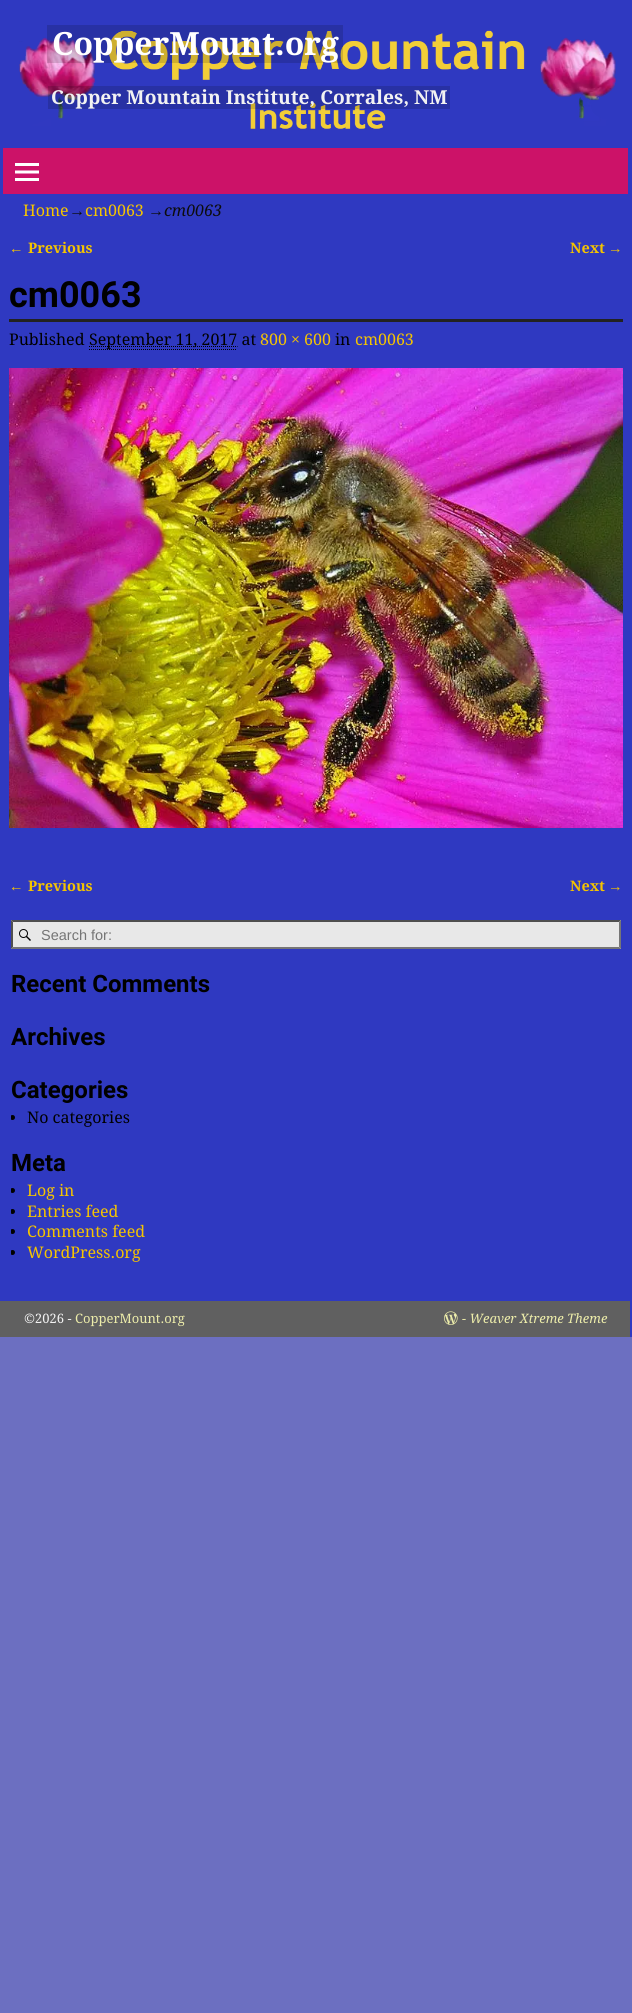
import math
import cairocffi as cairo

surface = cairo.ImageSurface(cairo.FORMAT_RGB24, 632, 2013)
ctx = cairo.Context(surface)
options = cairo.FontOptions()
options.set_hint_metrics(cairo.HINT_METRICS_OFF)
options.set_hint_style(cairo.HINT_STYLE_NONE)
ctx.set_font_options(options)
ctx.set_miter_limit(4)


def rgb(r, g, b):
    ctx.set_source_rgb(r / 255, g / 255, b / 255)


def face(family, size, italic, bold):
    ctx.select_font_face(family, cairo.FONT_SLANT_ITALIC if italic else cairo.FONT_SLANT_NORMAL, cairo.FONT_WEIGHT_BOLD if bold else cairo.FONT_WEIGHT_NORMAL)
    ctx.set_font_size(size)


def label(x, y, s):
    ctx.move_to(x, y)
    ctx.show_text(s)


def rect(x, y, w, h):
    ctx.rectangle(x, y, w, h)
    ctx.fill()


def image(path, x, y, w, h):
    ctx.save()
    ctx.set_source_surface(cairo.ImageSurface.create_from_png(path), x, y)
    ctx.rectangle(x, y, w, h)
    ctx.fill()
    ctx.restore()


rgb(108, 111, 193)
ctx.paint()
rgb(47, 57, 193)
rect(0, 0, 632, 1337)
image('image0.png', 19, 30, 597, 99)
ctx.set_source_rgba(0, 0, 0, 0.15)
rect(47, 25, 296, 38)
face('Droid Serif', 32, 0, 1)
rgb(255, 255, 255)
label(52, 55, 'CopperMount.org')
ctx.set_source_rgba(0, 0, 0, 0.15)
rect(48, 86, 402, 23)
face('Droid Serif', 19.2, 0, 1)
rgb(242, 242, 242)
label(51, 104, 'Copper Mountain Institute, Corrales, NM')
rgb(204, 18, 104)
rect(3, 148, 625, 46)
image('image1.png', 15, 163, 24, 18)
face('Droid Serif', 16, 0, 0)
rgb(245, 196, 0)
label(23, 216, 'Home')
face('Liberation Serif', 16, 0, 0)
rgb(12, 12, 12)
label(69, 216, '→')
face('Droid Serif', 16, 0, 0)
rgb(245, 196, 0)
label(85, 216, 'cm0063')
face('Liberation Serif', 16, 0, 0)
rgb(12, 12, 12)
label(148, 216, '→')
face('Droid Serif', 16, 1, 0)
label(164, 216, 'cm0063')
face('Liberation Serif', 14.5, 0, 1)
rgb(245, 196, 0)
label(9, 253, '←')
face('Droid Serif', 14.5, 0, 1)
label(28, 253, 'Previous')
label(570, 253, 'Next')
face('Liberation Serif', 14.5, 0, 1)
label(608, 253, '→')
rgb(34, 34, 34)
rect(9, 319, 614, 3)
face('Roboto', 36, 0, 1)
rgb(0, 0, 0)
label(9, 307, 'cm0063')
face('Droid Serif', 16, 0, 0)
label(9, 345, 'Published')
ctx.new_path()
ctx.move_to(89, 346.5)
ctx.line_to(237.5, 346.5)
ctx.set_line_width(1)
ctx.set_dash([1, 1])
ctx.stroke()
label(89, 345, 'September 11, 2017 at')
ctx.new_path()
ctx.move_to(89, 349.5)
ctx.line_to(237, 349.5)
ctx.stroke()
rgb(245, 196, 0)
label(260, 345, '800 × 600')
rgb(0, 0, 0)
label(335, 345, 'in')
rgb(245, 196, 0)
label(355, 345, 'cm0063')
image('image2.png', 9, 368, 614, 460)
face('Liberation Serif', 14.5, 0, 1)
label(9, 891, '←')
face('Droid Serif', 14.5, 0, 1)
label(28, 891, 'Previous')
label(570, 891, 'Next')
face('Liberation Serif', 14.5, 0, 1)
label(608, 891, '→')
rgb(232, 232, 232)
rect(11, 920, 610, 29)
image('image3.png', 19, 929, 12, 12)
rgb(79, 79, 79)
ctx.new_path()
ctx.move_to(11, 920)
ctx.line_to(621, 920)
ctx.line_to(619, 922)
ctx.line_to(13, 922)
ctx.close_path()
ctx.fill()
rgb(118, 118, 118)
ctx.new_path()
ctx.move_to(621, 920)
ctx.line_to(621, 949)
ctx.line_to(619, 947)
ctx.line_to(619, 922)
ctx.close_path()
ctx.fill()
ctx.new_path()
ctx.move_to(621, 949)
ctx.line_to(11, 949)
ctx.line_to(13, 947)
ctx.line_to(619, 947)
ctx.close_path()
ctx.fill()
rgb(79, 79, 79)
ctx.new_path()
ctx.move_to(11, 949)
ctx.line_to(11, 920)
ctx.line_to(13, 922)
ctx.line_to(13, 947)
ctx.close_path()
ctx.fill()
face('Liberation Sans', 14.5, 0, 0)
rgb(117, 117, 117)
label(41, 940, 'Search for:')
face('Roboto', 24, 0, 1)
rgb(0, 0, 0)
label(11, 992, 'Recent Comments')
label(11, 1045, 'Archives')
label(11, 1098, 'Categories')
ctx.save()
ctx.rectangle(11, 1075, 610, 53)
ctx.clip()
ctx.arc(12.5, 1117.5, 2.5, 0, 2 * math.pi)
ctx.fill()
ctx.restore()
face('Droid Serif', 16, 0, 0)
label(27, 1123, 'No categories')
face('Roboto', 24, 0, 1)
label(11, 1171, 'Meta')
ctx.save()
ctx.rectangle(11, 1148, 610, 115)
ctx.clip()
ctx.arc(12.5, 1190.5, 2.5, 0, 2 * math.pi)
ctx.fill()
ctx.restore()
face('Droid Serif', 16, 0, 0)
rgb(245, 196, 0)
label(27, 1196, 'Log in')
ctx.save()
ctx.rectangle(11, 1148, 610, 115)
ctx.clip()
rgb(0, 0, 0)
ctx.arc(12.5, 1211.5, 2.5, 0, 2 * math.pi)
ctx.fill()
ctx.restore()
label(27, 1217, 'Entries feed')
ctx.save()
ctx.rectangle(11, 1148, 610, 115)
ctx.clip()
rgb(0, 0, 0)
ctx.arc(12.5, 1231.5, 2.5, 0, 2 * math.pi)
ctx.fill()
ctx.restore()
label(27, 1237, 'Comments feed')
ctx.save()
ctx.rectangle(11, 1148, 610, 115)
ctx.clip()
rgb(0, 0, 0)
ctx.arc(12.5, 1252.5, 2.5, 0, 2 * math.pi)
ctx.fill()
ctx.restore()
label(27, 1258, 'WordPress.org')
rgb(96, 96, 96)
rect(0, 1301, 630, 36)
face('Droid Serif', 13, 0, 0)
rgb(242, 242, 242)
label(24, 1323, '©2026 -')
rgb(237, 237, 170)
label(75, 1323, 'CopperMount.org')
image('image4.png', 444, 1311, 14, 14)
face('Droid Serif', 13, 1, 0)
label(462, 1323, '- Weaver Xtreme Theme')
surface.write_to_png('render.png')
